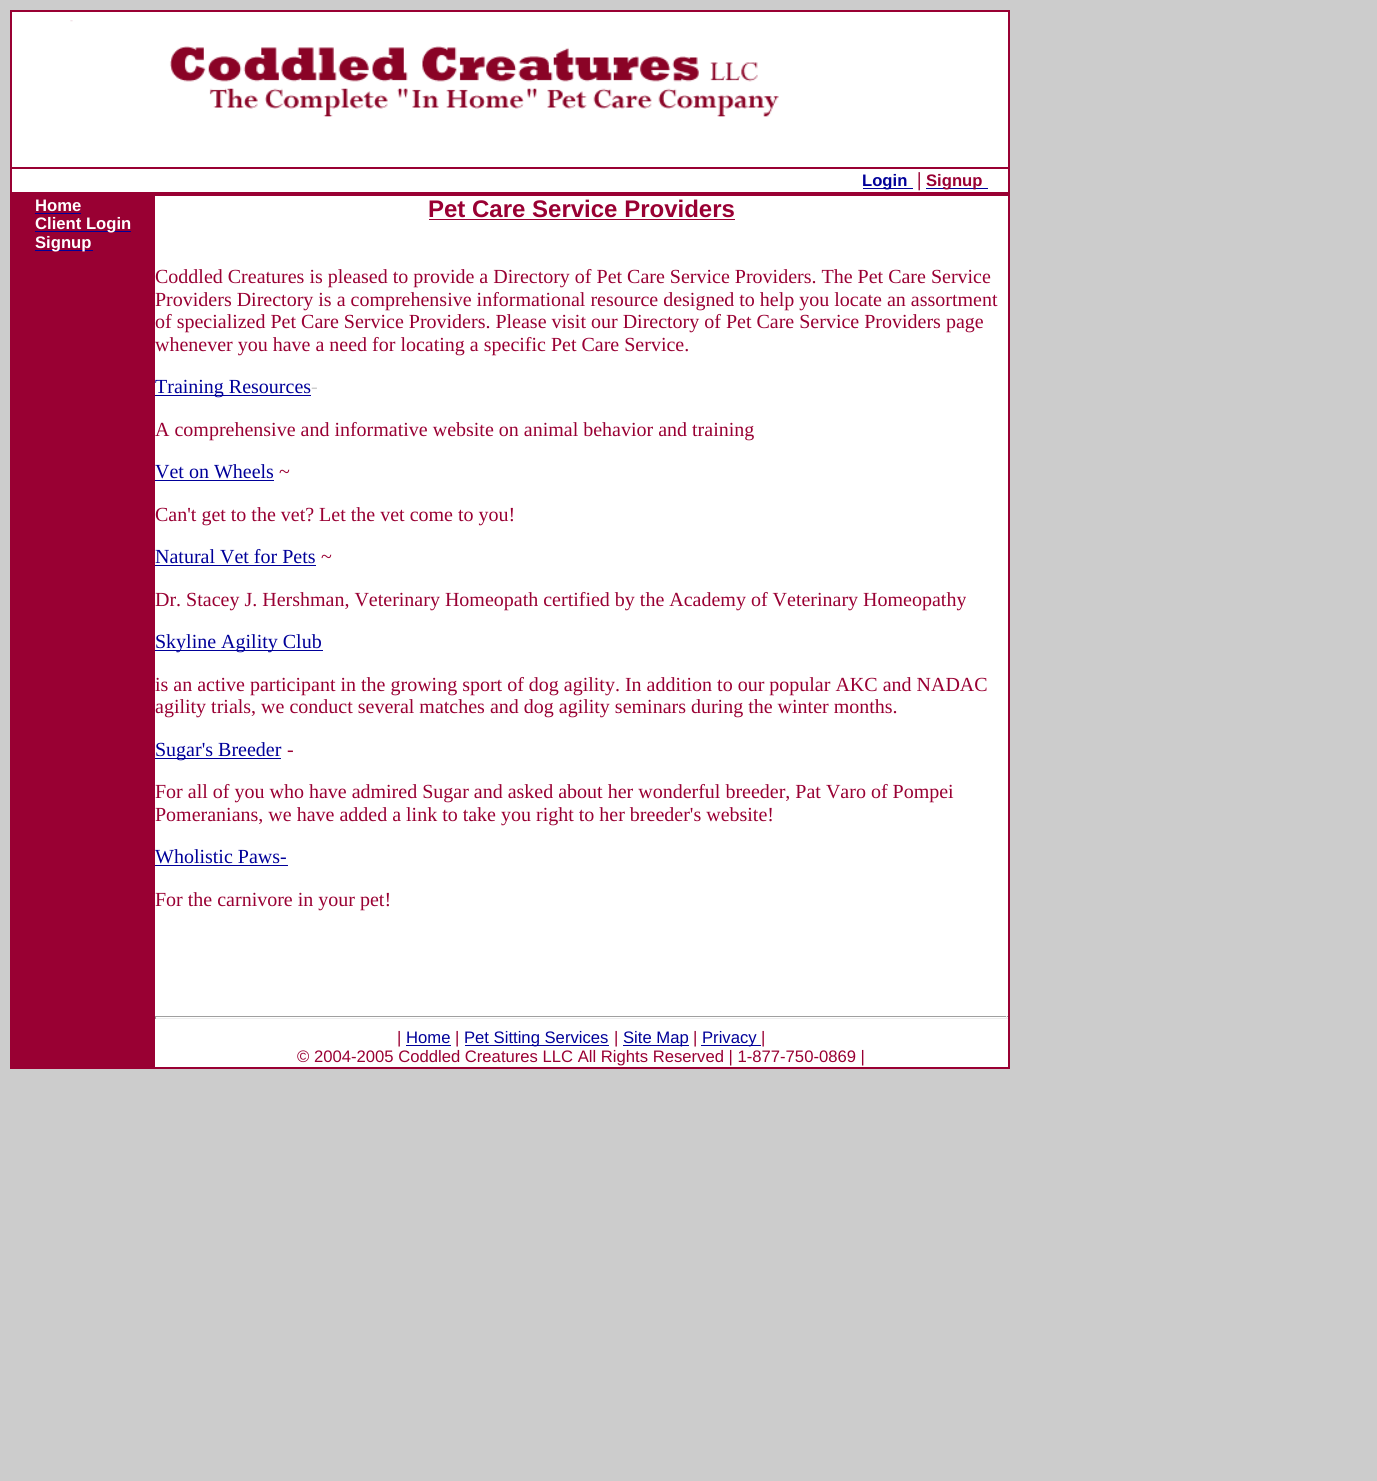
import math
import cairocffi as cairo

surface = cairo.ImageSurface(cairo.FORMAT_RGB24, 1377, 1481)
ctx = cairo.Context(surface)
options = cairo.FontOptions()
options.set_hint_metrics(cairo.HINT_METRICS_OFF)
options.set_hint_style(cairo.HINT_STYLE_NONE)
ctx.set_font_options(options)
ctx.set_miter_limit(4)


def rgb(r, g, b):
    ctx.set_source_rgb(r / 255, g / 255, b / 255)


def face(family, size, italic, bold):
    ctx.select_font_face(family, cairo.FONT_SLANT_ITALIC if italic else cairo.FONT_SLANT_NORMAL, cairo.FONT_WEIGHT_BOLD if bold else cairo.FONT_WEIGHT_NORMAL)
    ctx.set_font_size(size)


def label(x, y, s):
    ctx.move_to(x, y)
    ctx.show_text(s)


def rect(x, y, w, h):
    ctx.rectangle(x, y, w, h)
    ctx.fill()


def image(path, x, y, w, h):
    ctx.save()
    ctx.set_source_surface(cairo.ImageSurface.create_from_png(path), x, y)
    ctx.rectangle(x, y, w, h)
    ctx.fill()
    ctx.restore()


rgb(204, 204, 204)
ctx.paint()
rgb(153, 0, 51)
rect(10, 10, 1000, 1059)
rgb(255, 255, 255)
rect(12, 12, 996, 155)
image('image0.png', 70, 20, 709, 97)
rect(12, 169, 996, 23)
rgb(0, 0, 153)
rect(863, 188, 50, 1)
face('Liberation Sans', 16.65, 0, 1)
label(862, 186, 'Login')
face('Liberation Serif', 20, 0, 1)
rgb(153, 0, 51)
label(917, 186, '|')
rgb(0, 0, 153)
rect(926, 188, 62, 1)
face('Liberation Sans', 16.65, 0, 1)
rgb(153, 0, 51)
label(926, 186, 'Signup')
rgb(255, 255, 255)
label(35, 211, 'Home')
rgb(0, 0, 153)
rect(35, 213, 46, 1)
rect(35, 231, 96, 1)
rgb(255, 255, 255)
label(35, 229, 'Client Login')
rgb(0, 0, 153)
rect(35, 250, 58, 1)
rgb(255, 255, 255)
label(35, 248, 'Signup')
rect(155, 196, 853, 871)
face('Liberation Sans', 24, 0, 1)
rgb(153, 0, 51)
label(428, 217, 'Pet Care Service Providers')
rect(429, 219, 306, 1)
face('Liberation Serif', 20, 0, 0)
label(155, 283, 'Coddled Creatures is pleased to provide a Directory of Pet Care Service Providers. The Pet Care Service')
label(155, 306, 'Providers Directory is a comprehensive informational resource designed to help you locate an assortment')
label(155, 328, 'of specialized Pet Care Service Providers. Please visit our Directory of Pet Care Service Providers page')
label(155, 351, 'whenever you have a need for locating a specific Pet Care Service.')
rgb(0, 0, 153)
rect(155, 395, 156, 1)
label(155, 393, 'Training Resources')
rgb(204, 204, 204)
label(311, 393, '-')
rgb(153, 0, 51)
label(155, 436, 'A comprehensive and informative website on animal behavior and training')
rgb(0, 0, 153)
label(155, 478, 'Vet on Wheels')
rect(155, 480, 119, 1)
rgb(153, 0, 51)
label(279, 478, '~')
label(155, 521, 'Can\'t get to the vet? Let the vet come to you!')
rgb(0, 0, 153)
label(155, 563, 'Natural Vet for Pets')
rect(155, 565, 161, 1)
rgb(153, 0, 51)
label(321, 563, '~')
label(155, 606, 'Dr. Stacey J. Hershman, Veterinary Homeopath certified by the Academy of Veterinary Homeopathy')
rgb(0, 0, 153)
rect(155, 650, 168, 1)
label(155, 648, 'Skyline Agility Club')
rgb(153, 0, 51)
label(155, 691, 'is an active participant in the growing sport of dog agility. In addition to our popular AKC and NADAC')
label(155, 713, 'agility trials, we conduct several matches and dog agility seminars during the winter months.')
rgb(0, 0, 153)
rect(155, 758, 126, 1)
label(155, 756, 'Sugar\'s Breeder')
rgb(153, 0, 51)
label(287, 756, '-')
label(155, 798, 'For all of you who have admired Sugar and asked about her wonderful breeder, Pat Varo of Pompei')
label(155, 821, 'Pomeranians, we have added a link to take you right to her breeder\'s website!')
rgb(0, 0, 153)
label(155, 863, 'Wholistic Paws-')
rect(155, 865, 133, 1)
rgb(153, 0, 51)
label(155, 906, 'For the carnivore in your pet!')
rgb(159, 159, 159)
rect(155, 1016, 853, 1)
rgb(238, 238, 238)
rect(1006, 1016, 1, 3)
rect(155, 1018, 853, 1)
rgb(159, 159, 159)
rect(155, 1016, 1, 3)
face('Liberation Sans', 16.65, 0, 0)
rgb(153, 0, 51)
label(397, 1043, '|')
rgb(0, 0, 153)
label(406, 1043, 'Home')
rect(406, 1045, 45, 1)
rgb(153, 0, 51)
label(455, 1043, '|')
rgb(0, 0, 153)
rect(465, 1045, 144, 1)
label(464, 1043, 'Pet Sitting Services')
rgb(153, 0, 51)
label(614, 1043, '|')
rgb(0, 0, 153)
rect(623, 1045, 66, 1)
label(623, 1043, 'Site Map')
rgb(153, 0, 51)
label(693, 1043, '|')
rgb(0, 0, 153)
rect(701, 1045, 60, 1)
label(702, 1043, 'Privacy')
rgb(153, 0, 51)
label(761, 1043, '|')
label(297, 1062, '© 2004-2005 Coddled Creatures LLC All Rights Reserved | 1-877-750-0869 |')
surface.write_to_png('render.png')
